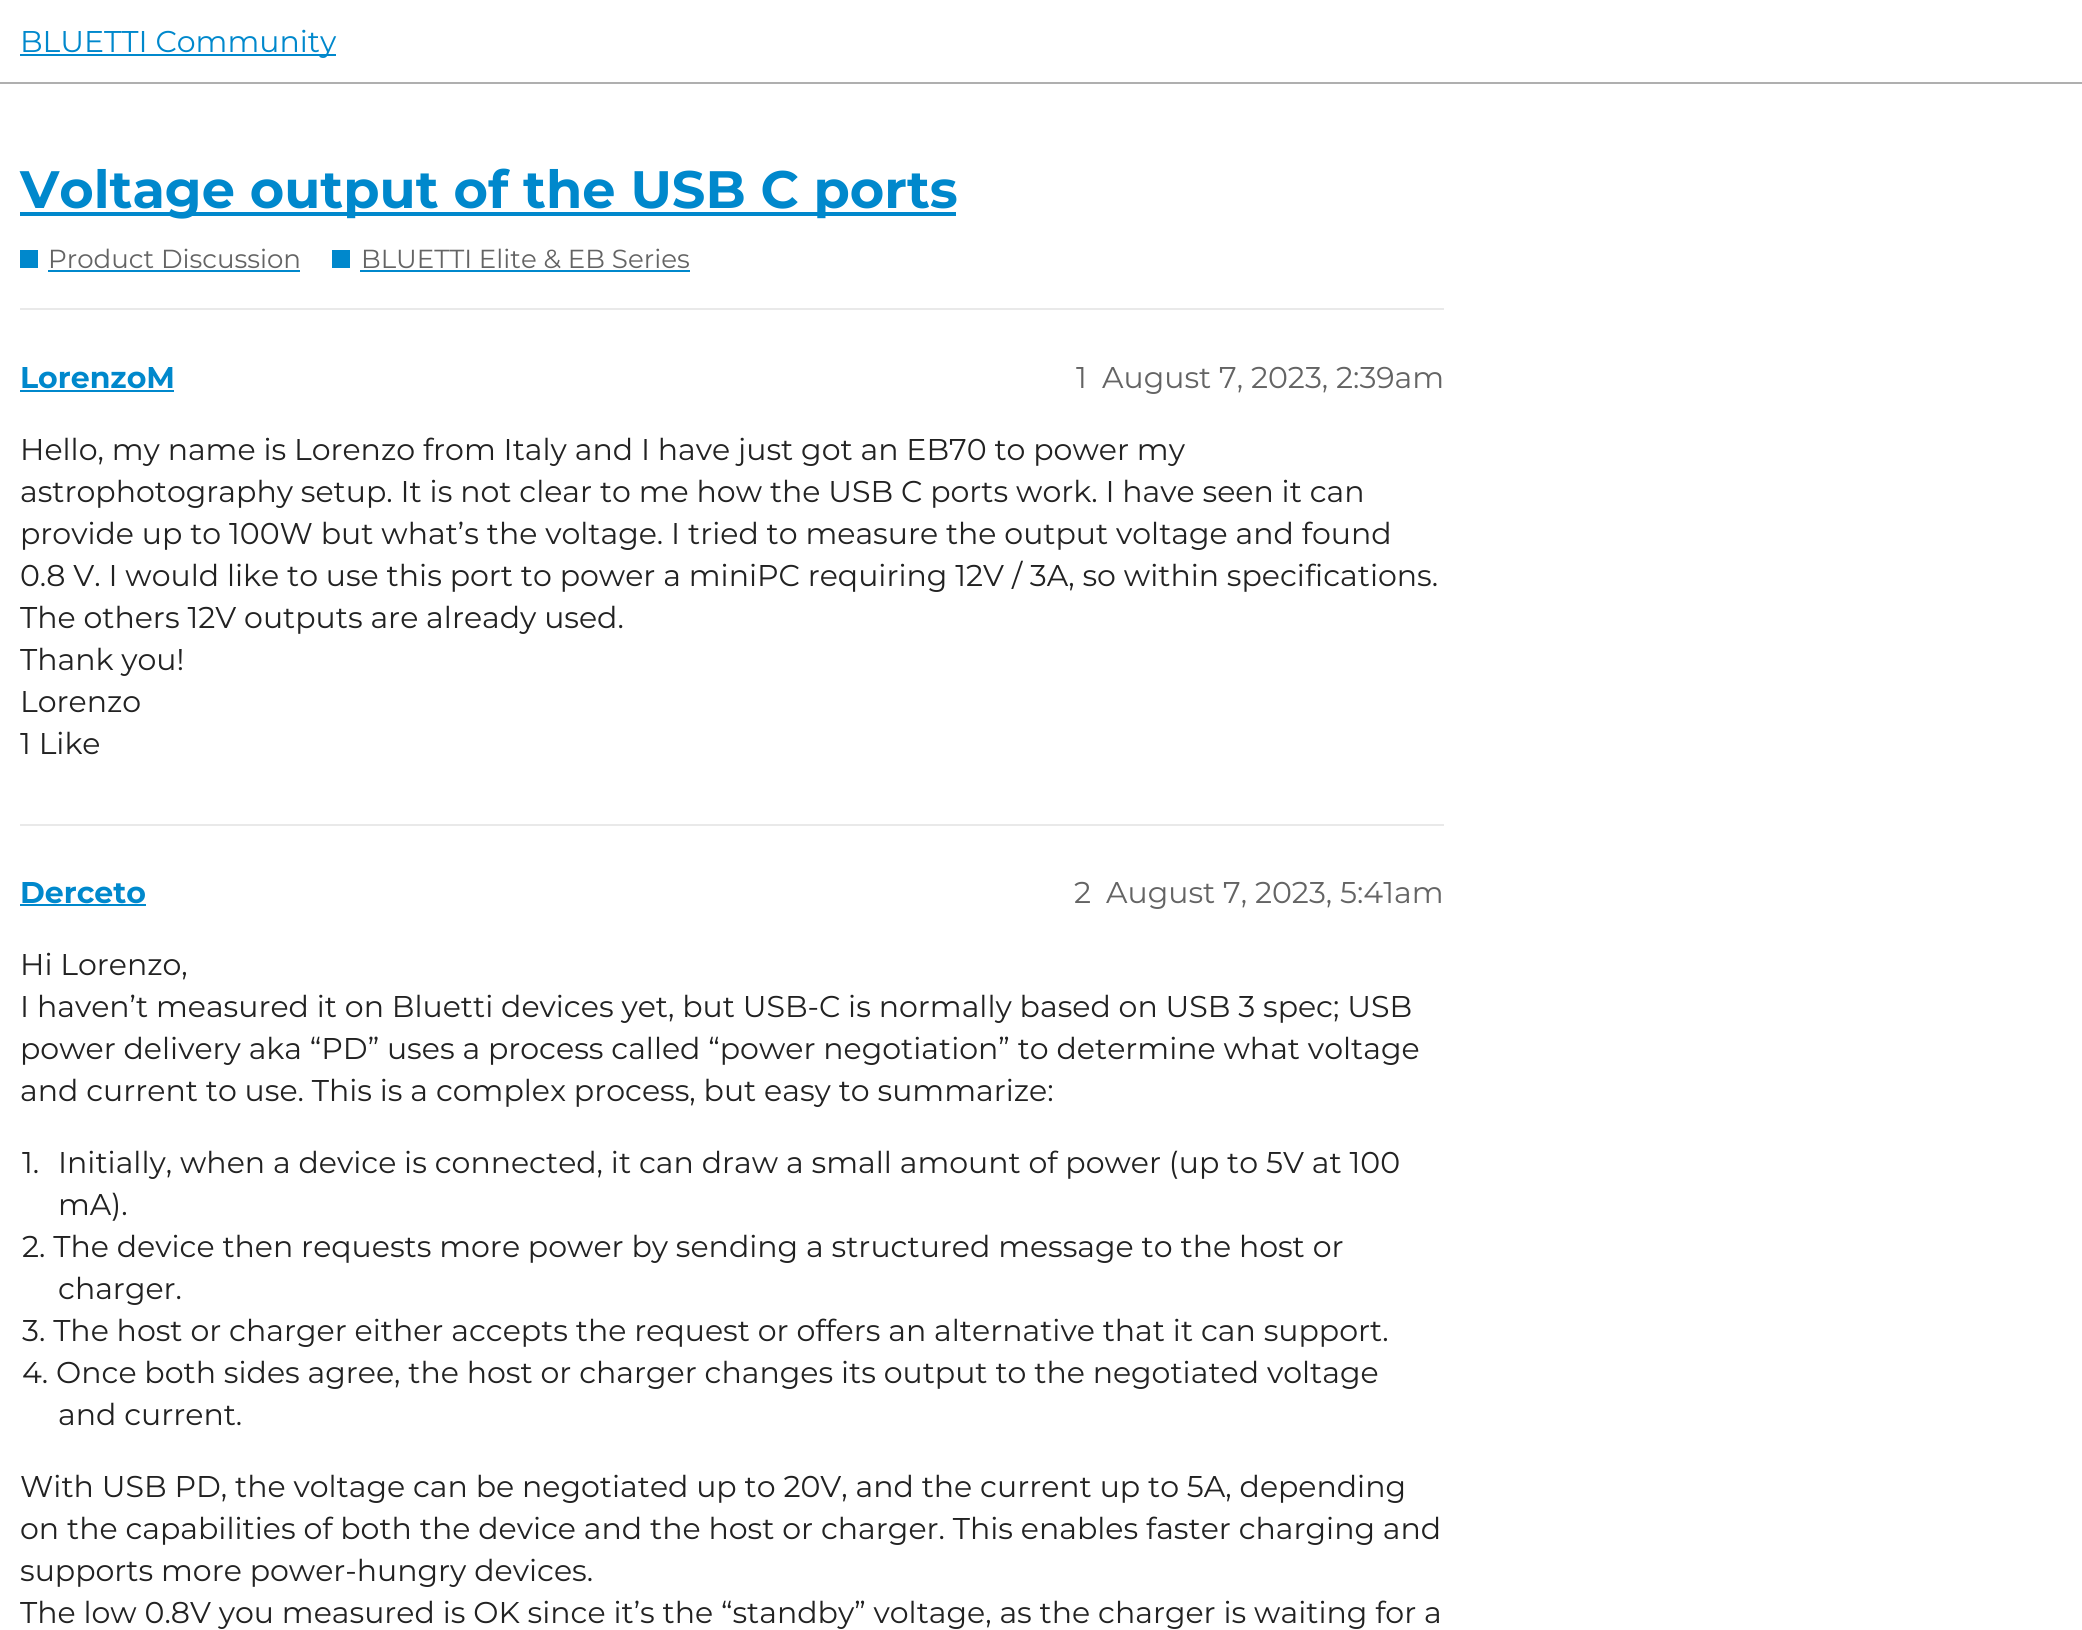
import math
import cairocffi as cairo

surface = cairo.ImageSurface(cairo.FORMAT_RGB24, 2082, 1630)
ctx = cairo.Context(surface)
options = cairo.FontOptions()
options.set_hint_metrics(cairo.HINT_METRICS_OFF)
options.set_hint_style(cairo.HINT_STYLE_NONE)
ctx.set_font_options(options)
ctx.set_miter_limit(4)


def rgb(r, g, b):
    ctx.set_source_rgb(r / 255, g / 255, b / 255)


def face(family, size, italic, bold):
    ctx.select_font_face(family, cairo.FONT_SLANT_ITALIC if italic else cairo.FONT_SLANT_NORMAL, cairo.FONT_WEIGHT_BOLD if bold else cairo.FONT_WEIGHT_NORMAL)
    ctx.set_font_size(size)


def label(x, y, s):
    ctx.move_to(x, y)
    ctx.show_text(s)


def rect(x, y, w, h):
    ctx.rectangle(x, y, w, h)
    ctx.fill()


rgb(255, 255, 255)
ctx.paint()
rgb(175, 175, 175)
rect(0, 82, 2082, 2)
rgb(0, 136, 204)
rect(20, 54, 316, 2)
face('Montserrat', 30, 0, 0)
label(20, 52, 'BLUETTI Community')
rect(20, 212, 936, 4)
face('Montserrat', 52.6, 0, 1)
label(20, 208, 'Voltage output of the USB C ports')
rect(20, 250, 18, 18)
face('Montserrat', 26.1, 0, 0)
rgb(100, 100, 100)
label(48, 268, 'Product Discussion')
rgb(0, 136, 204)
rect(48, 270, 252, 2)
rect(332, 250, 18, 18)
rgb(100, 100, 100)
label(361, 268, 'BLUETTI Elite & EB Series')
rgb(0, 136, 204)
rect(360, 270, 330, 2)
rgb(233, 233, 233)
rect(20, 308, 1424, 2)
face('Montserrat', 30, 0, 1)
rgb(0, 136, 204)
label(20, 388, 'LorenzoM')
rect(20, 390, 154, 2)
face('Montserrat', 30, 0, 0)
rgb(100, 100, 100)
label(1076, 388, '1')
label(1102, 388, 'August 7, 2023, 2:39am')
rgb(34, 34, 34)
label(20, 460, 'Hello, my name is Lorenzo from Italy and I have just got an EB70 to power my')
label(20, 502, 'astrophotography setup. It is not clear to me how the USB C ports work. I have seen it can')
label(20, 544, 'provide up to 100W but what’s the voltage. I tried to measure the output voltage and found')
label(20, 586, '0.8 V. I would like to use this port to power a miniPC requiring 12V / 3A, so within specifications.')
label(20, 628, 'The others 12V outputs are already used.')
label(20, 670, 'Thank you!')
label(20, 712, 'Lorenzo')
label(20, 754, '1 Like')
rgb(233, 233, 233)
rect(20, 824, 1424, 2)
face('Montserrat', 30, 0, 1)
rgb(0, 136, 204)
label(20, 903, 'Derceto')
rect(20, 904, 126, 2)
face('Montserrat', 30, 0, 0)
rgb(100, 100, 100)
label(1074, 903, '2')
label(1106, 903, 'August 7, 2023, 5:41am')
rgb(34, 34, 34)
label(20, 975, 'Hi Lorenzo,')
label(20, 1017, 'I haven’t measured it on Bluetti devices yet, but USB-C is normally based on USB 3 spec; USB')
label(20, 1059, 'power delivery aka “PD” uses a process called “power negotiation” to determine what voltage')
label(20, 1101, 'and current to use. This is a complex process, but easy to summarize:')
label(22, 1173, '1.')
label(58, 1173, 'Initially, when a device is connected, it can draw a small amount of power (up to 5V at 100')
label(58, 1215, 'mA).')
label(22, 1257, '2. The device then requests more power by sending a structured message to the host or')
label(58, 1299, 'charger.')
label(22, 1341, '3. The host or charger either accepts the request or offers an alternative that it can support.')
label(22, 1383, '4. Once both sides agree, the host or charger changes its output to the negotiated voltage')
label(58, 1425, 'and current.')
label(20, 1497, 'With USB PD, the voltage can be negotiated up to 20V, and the current up to 5A, depending')
label(20, 1539, 'on the capabilities of both the device and the host or charger. This enables faster charging and')
label(20, 1581, 'supports more power-hungry devices.')
label(20, 1623, 'The low 0.8V you measured is OK since it’s the “standby” voltage, as the charger is waiting for a')
surface.write_to_png('render.png')
